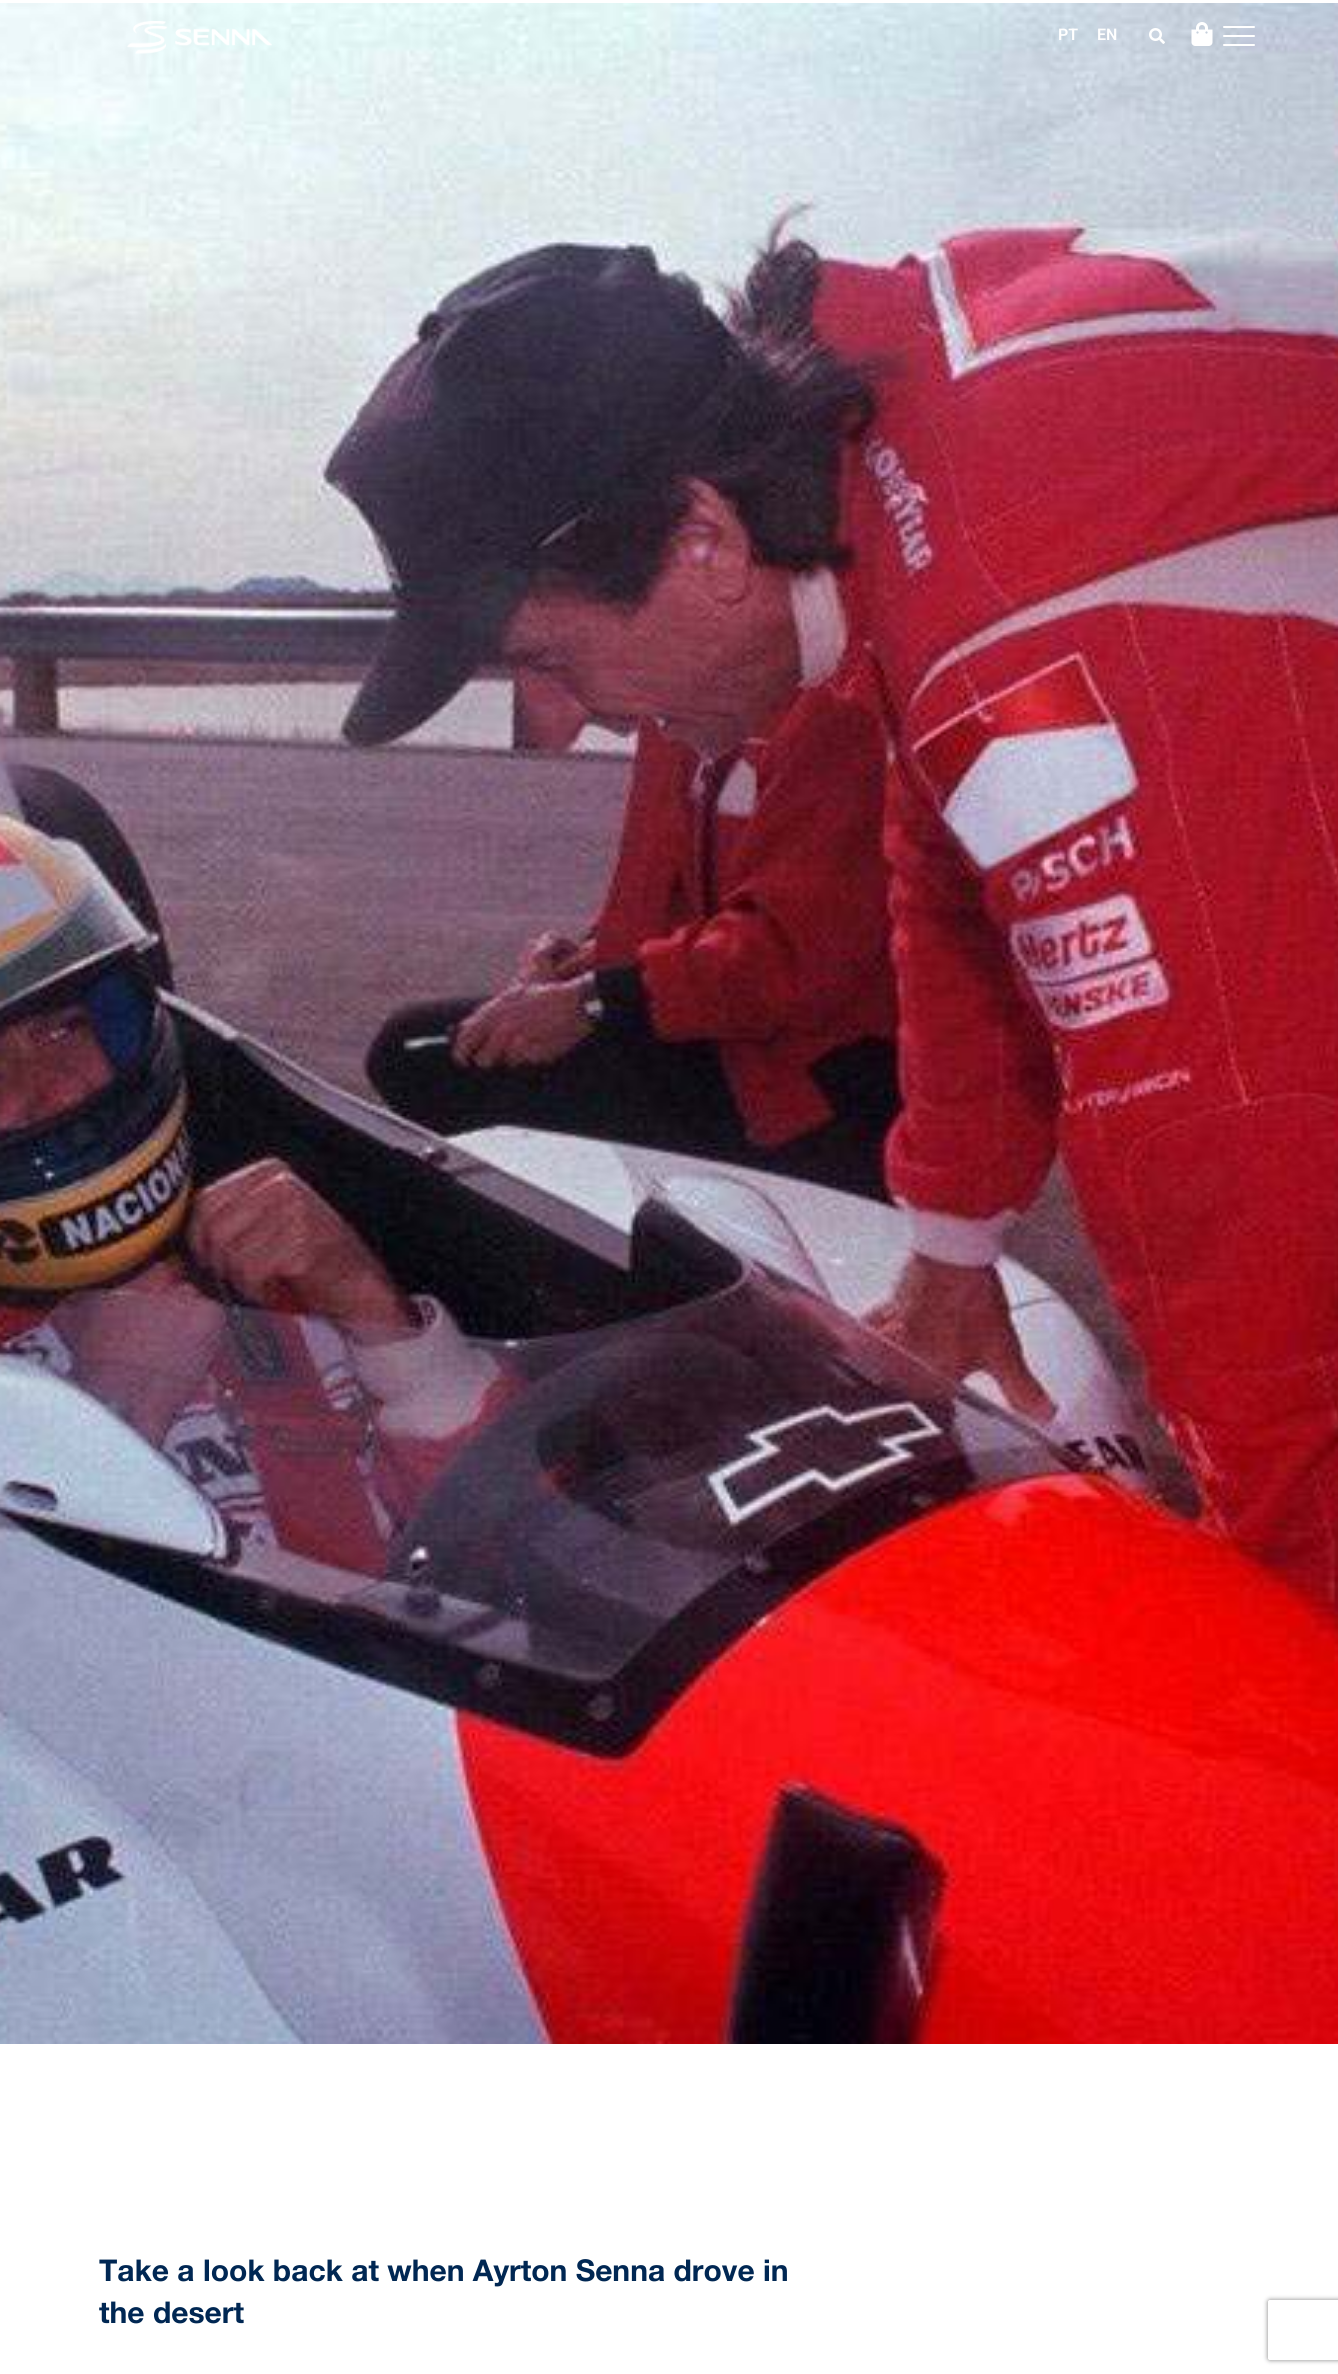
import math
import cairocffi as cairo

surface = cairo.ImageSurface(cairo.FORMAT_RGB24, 1338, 2374)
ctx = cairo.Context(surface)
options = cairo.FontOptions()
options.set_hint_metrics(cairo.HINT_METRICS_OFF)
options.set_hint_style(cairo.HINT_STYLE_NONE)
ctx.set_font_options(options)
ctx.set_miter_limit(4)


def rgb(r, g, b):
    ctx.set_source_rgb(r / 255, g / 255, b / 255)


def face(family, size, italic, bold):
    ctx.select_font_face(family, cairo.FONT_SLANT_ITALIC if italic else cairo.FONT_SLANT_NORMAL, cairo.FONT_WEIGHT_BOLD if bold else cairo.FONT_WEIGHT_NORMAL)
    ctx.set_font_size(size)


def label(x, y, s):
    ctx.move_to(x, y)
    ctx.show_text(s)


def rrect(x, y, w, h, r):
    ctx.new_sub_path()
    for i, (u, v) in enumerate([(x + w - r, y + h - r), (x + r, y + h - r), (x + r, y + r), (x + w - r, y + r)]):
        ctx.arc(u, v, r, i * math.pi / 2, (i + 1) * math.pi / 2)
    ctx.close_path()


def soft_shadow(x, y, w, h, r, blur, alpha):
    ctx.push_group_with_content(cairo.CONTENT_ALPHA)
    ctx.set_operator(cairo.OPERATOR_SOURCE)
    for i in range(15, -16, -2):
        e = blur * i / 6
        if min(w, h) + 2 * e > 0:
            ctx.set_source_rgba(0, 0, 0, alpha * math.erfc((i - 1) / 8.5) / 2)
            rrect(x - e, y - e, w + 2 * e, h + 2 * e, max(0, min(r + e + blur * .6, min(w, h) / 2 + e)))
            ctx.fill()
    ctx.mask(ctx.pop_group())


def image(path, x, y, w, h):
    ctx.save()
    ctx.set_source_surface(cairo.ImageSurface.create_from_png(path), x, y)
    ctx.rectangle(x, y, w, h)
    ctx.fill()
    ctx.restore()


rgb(255, 255, 255)
ctx.paint()
image('image3.png', 0, 3, 1338, 2041)
image('image0.png', 127, 21, 145, 33)
face('Roboto SemiBold', 16, 0, 0)
rgb(255, 255, 255)
label(1058, 40, 'PT')
label(1097, 40, 'EN')
image('image1.png', 1149, 28, 16, 16)
image('image2.png', 1191, 22, 22, 24)
rrect(1223, 26, 32, 2, 1)
ctx.fill()
rrect(1223, 35, 32, 2, 1)
ctx.fill()
rrect(1223, 44, 32, 2, 1)
ctx.fill()
face('Helvetica Neue', 30, 0, 1)
rgb(0, 39, 83)
label(99, 2281, 'Take a look back at when Ayrton Senna drove in')
label(99, 2323, 'the desert')
ctx.save()
ctx.set_fill_rule(cairo.FILL_RULE_EVEN_ODD)
ctx.new_path()
ctx.move_to(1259, 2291)
ctx.line_to(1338, 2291)
ctx.line_to(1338, 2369)
ctx.line_to(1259, 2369)
ctx.close_path()
ctx.move_to(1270, 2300)
ctx.line_to(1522, 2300)
ctx.curve_to(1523, 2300, 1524, 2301, 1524, 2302)
ctx.line_to(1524, 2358)
ctx.curve_to(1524, 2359, 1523, 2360, 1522, 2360)
ctx.line_to(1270, 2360)
ctx.curve_to(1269, 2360, 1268, 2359, 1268, 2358)
ctx.line_to(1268, 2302)
ctx.curve_to(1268, 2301, 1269, 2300, 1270, 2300)
ctx.close_path()
ctx.clip()
rgb(128, 128, 128)
soft_shadow(1268, 2300, 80, 60, 2, 2.5, 1)
ctx.restore()
surface.write_to_png('render.png')
